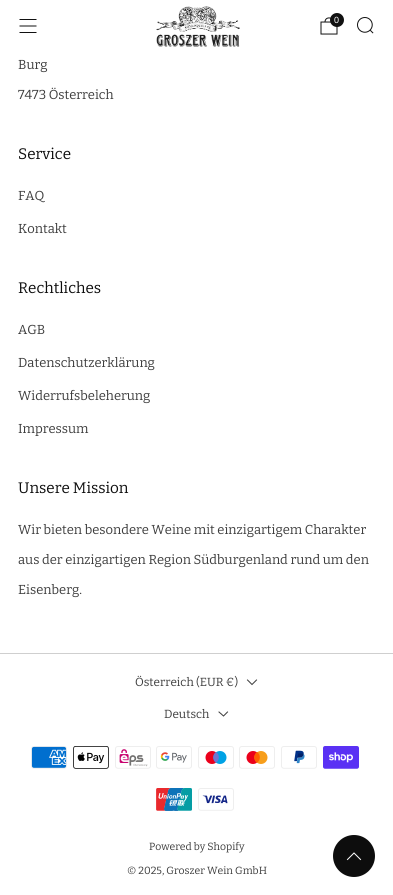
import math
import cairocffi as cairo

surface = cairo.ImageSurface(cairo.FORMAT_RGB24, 393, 895)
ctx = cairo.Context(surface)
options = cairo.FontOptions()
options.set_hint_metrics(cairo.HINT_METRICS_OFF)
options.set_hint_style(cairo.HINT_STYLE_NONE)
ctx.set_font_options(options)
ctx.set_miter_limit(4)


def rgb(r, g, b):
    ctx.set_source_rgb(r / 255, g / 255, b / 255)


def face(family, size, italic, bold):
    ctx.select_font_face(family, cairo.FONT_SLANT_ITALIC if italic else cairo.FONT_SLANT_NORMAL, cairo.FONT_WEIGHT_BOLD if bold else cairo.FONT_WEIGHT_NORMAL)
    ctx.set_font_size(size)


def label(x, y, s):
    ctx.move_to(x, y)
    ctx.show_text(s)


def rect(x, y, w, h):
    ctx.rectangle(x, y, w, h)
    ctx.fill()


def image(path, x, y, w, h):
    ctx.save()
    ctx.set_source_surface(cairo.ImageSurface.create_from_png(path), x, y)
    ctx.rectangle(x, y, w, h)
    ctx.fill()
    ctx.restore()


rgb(255, 255, 255)
ctx.paint()
ctx.new_path()
ctx.move_to(19.5, 19.5)
ctx.line_to(36.5, 19.5)
ctx.move_to(19.5, 26)
ctx.line_to(36.5, 26)
ctx.move_to(19.5, 32.5)
ctx.line_to(36.5, 32.5)
rgb(17, 17, 17)
ctx.set_line_width(1)
ctx.stroke()
image('image0.png', 156, 6, 84, 41)
ctx.new_path()
ctx.move_to(333, 22)
ctx.curve_to(333, 16.5, 325, 16.5, 325, 22)
ctx.move_to(321, 22)
ctx.line_to(337, 22)
ctx.line_to(337, 34)
ctx.line_to(321, 34)
ctx.close_path()
ctx.stroke()
ctx.arc(337, 20, 7, 0, 2 * math.pi)
ctx.fill()
face('Liberation Sans', 9, 0, 0)
rgb(255, 255, 255)
label(334, 23, '0')
image('image1.png', 357, 17, 17, 17)
face('Bitter', 13, 0, 0)
rgb(61, 61, 61)
label(18, 69, 'Burg')
label(18, 99, '7473 Österreich')
face('Bitter', 15.25, 0, 0)
rgb(13, 13, 13)
label(18, 159, 'Service')
face('Bitter', 13, 0, 0)
rgb(61, 61, 61)
label(18, 200, 'FAQ')
label(18, 233, 'Kontakt')
face('Bitter', 15.25, 0, 0)
rgb(13, 13, 13)
label(18, 293, 'Rechtliches')
face('Bitter', 13, 0, 0)
rgb(61, 61, 61)
label(18, 334, 'AGB')
label(18, 367, 'Datenschutzerklärung')
label(18, 400, 'Widerrufsbeleherung')
label(18, 433, 'Impressum')
face('Bitter', 15.25, 0, 0)
rgb(13, 13, 13)
label(18, 493, 'Unsere Mission')
face('Bitter', 13, 0, 0)
rgb(61, 61, 61)
label(18, 534, 'Wir bieten besondere Weine mit einzigartigem Charakter')
label(18, 564, 'aus der einzigartigen Region Südburgenland rund um den')
label(18, 594, 'Eisenberg.')
rgb(207, 207, 207)
rect(0, 653, 393, 1)
face('Bitter', 11.75, 0, 0)
rgb(61, 61, 61)
label(135, 686, 'Österreich (EUR €)')
ctx.new_path()
ctx.move_to(256.5, 680)
ctx.line_to(252, 684.5)
ctx.line_to(247.5, 680)
ctx.set_line_cap(cairo.LINE_CAP_SQUARE)
ctx.stroke()
label(164, 718, 'Deutsch')
ctx.new_path()
ctx.move_to(227.5, 712)
ctx.line_to(223.5, 716)
ctx.line_to(219, 712)
ctx.stroke()
image('image2.png', 31, 746, 36, 23)
image('image3.png', 73, 746, 36, 23)
image('image4.png', 115, 746, 36, 23)
image('image5.png', 156, 746, 36, 23)
image('image6.png', 198, 746, 36, 23)
image('image7.png', 239, 746, 36, 23)
image('image8.png', 281, 746, 36, 23)
image('image9.png', 323, 746, 36, 23)
image('image10.png', 156, 788, 36, 23)
image('image11.png', 198, 788, 36, 23)
face('Bitter', 10.4, 0, 0)
label(149, 850, 'Powered by Shopify')
label(127, 874, '© 2025, Groszer Wein GmbH')
rgb(13, 13, 13)
ctx.new_path()
ctx.arc(354, 856, 21, 0, 2 * math.pi)
ctx.fill()
ctx.new_path()
ctx.move_to(347.5, 859.5)
ctx.line_to(354, 853)
ctx.line_to(360.5, 859.5)
rgb(255, 255, 255)
ctx.stroke()
surface.write_to_png('render.png')
